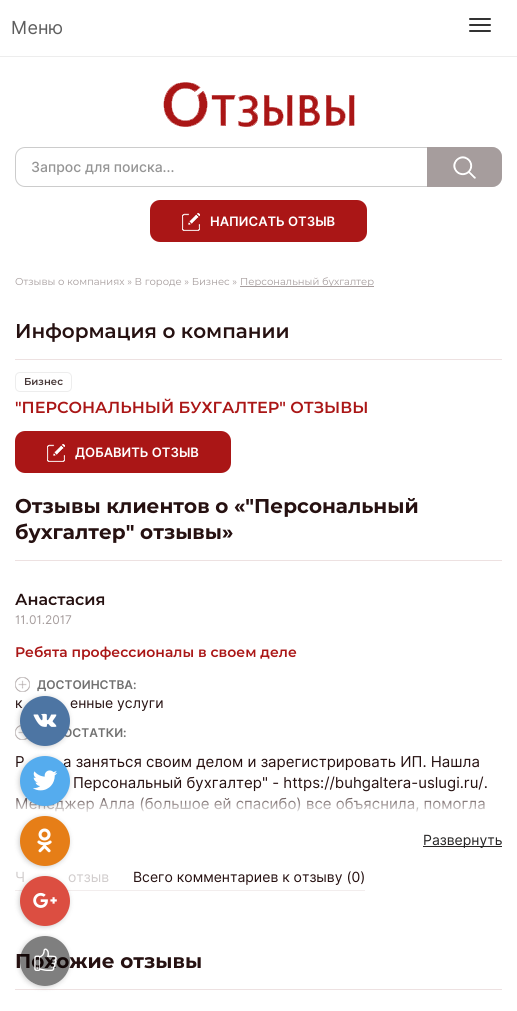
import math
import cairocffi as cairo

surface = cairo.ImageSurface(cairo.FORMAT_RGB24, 517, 1011)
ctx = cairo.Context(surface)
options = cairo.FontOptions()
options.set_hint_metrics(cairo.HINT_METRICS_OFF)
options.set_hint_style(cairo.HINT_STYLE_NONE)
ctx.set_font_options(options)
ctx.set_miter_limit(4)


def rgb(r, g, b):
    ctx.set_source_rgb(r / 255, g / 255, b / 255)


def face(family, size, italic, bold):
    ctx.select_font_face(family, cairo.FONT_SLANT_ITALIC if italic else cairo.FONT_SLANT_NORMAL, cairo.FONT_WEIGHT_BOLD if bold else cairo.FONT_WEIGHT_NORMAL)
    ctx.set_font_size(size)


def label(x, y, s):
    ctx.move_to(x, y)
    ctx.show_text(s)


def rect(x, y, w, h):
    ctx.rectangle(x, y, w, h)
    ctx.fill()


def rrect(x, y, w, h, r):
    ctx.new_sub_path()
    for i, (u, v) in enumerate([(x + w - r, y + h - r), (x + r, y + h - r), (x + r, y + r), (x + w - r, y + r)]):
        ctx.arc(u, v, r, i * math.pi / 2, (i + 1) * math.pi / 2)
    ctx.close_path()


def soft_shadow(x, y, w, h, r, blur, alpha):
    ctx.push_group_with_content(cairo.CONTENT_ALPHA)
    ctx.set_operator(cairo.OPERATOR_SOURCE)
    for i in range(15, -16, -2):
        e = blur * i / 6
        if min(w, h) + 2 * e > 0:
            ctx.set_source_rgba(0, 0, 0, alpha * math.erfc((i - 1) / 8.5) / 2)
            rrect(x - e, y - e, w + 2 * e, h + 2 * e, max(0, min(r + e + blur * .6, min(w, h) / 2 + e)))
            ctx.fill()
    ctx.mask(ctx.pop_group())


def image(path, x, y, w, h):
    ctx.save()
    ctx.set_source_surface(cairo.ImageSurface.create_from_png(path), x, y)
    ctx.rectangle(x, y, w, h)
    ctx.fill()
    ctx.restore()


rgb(255, 255, 255)
ctx.paint()
rgb(237, 237, 237)
rect(0, 56, 517, 1)
face('Inter', 18, 0, 0)
rgb(94, 94, 94)
label(11, 34, 'Меню')
rgb(51, 51, 51)
rrect(469, 18, 22, 2, 1)
ctx.fill()
rrect(469, 24, 22, 2, 1)
ctx.fill()
rrect(469, 30, 22, 2, 1)
ctx.fill()
image('image0.png', 163, 82, 192, 45)
rrect(15.5, 147.5, 486, 39, 9.5)
rgb(204, 204, 204)
ctx.set_line_width(1)
ctx.stroke()
face('Inter Medium', 14, 0, 0)
rgb(149, 149, 149)
label(31, 172, 'Запрос для поиска...')
rgb(166, 157, 157)
ctx.new_path()
ctx.move_to(427, 147)
ctx.line_to(492, 147)
ctx.curve_to(497.5, 147, 502, 151.5, 502, 157)
ctx.line_to(502, 177)
ctx.curve_to(502, 182.5, 497.5, 187, 492, 187)
ctx.line_to(427, 187)
ctx.close_path()
ctx.fill()
image('image1.png', 453, 156, 23, 23)
rgb(170, 22, 22)
rrect(151, 201, 215, 40, 9)
ctx.fill_preserve()
ctx.set_line_width(2)
ctx.stroke()
image('image2.png', 182, 213, 18, 18)
face('Inter SemiBold', 13, 0, 0)
rgb(255, 255, 255)
label(210, 226, 'НАПИСАТЬ ОТЗЫВ')
image('image8.png', 15, 677, 15, 15)
image('image9.png', 15, 725, 13, 15)
rgb(0, 0, 0)
soft_shadow(19, 697, 50, 50, 25, 2.5, 0.2)
face('Inter', 14, 0, 0)
rgb(38, 17, 17)
label(15, 708, 'к')
face('Inter SemiBold', 12, 0, 0)
rgb(113, 113, 113)
label(63, 737, 'ОСТАТКИ:')
rgb(77, 117, 163)
ctx.new_path()
ctx.arc(45, 721, 25, 0, 2 * math.pi)
ctx.fill()
image('image3.png', 33, 713, 24, 14)
face('Inter', 15, 0, 0)
rgb(38, 17, 17)
label(15, 809, 'Менеджер Алла (большое ей спасибо) все объяснила, помогла')
gradient = cairo.LinearGradient(259, 823, 259, 783)
gradient.add_color_stop_rgba(0.2, 1, 1, 1, 1)
gradient.add_color_stop_rgba(0.8, 1, 1, 1, 0)
ctx.set_source(gradient)
rect(16, 797, 469, 16)
rgb(0, 0, 0)
soft_shadow(19, 757, 50, 50, 25, 2.5, 0.2)
rgb(38, 17, 17)
label(15, 767, 'Р')
label(63, 767, 'а заняться своим делом и зарегистрировать ИП. Нашла')
rgb(85, 172, 238)
ctx.new_path()
ctx.arc(45, 781, 25, 0, 2 * math.pi)
ctx.fill()
image('image4.png', 33, 770, 25, 21)
rgb(0, 0, 0)
soft_shadow(19, 817, 50, 50, 25, 2.5, 0.2)
rgb(230, 126, 23)
ctx.arc(45, 841, 25, 0, 2 * math.pi)
ctx.fill()
image('image5.png', 37, 828, 15, 25)
rgb(242, 237, 237)
rect(15, 890, 350, 1)
rgb(0, 0, 0)
soft_shadow(19, 877, 50, 50, 25, 2.5, 0.2)
face('Inter', 14, 0, 0)
rgb(209, 205, 205)
label(15, 882, 'Ч')
label(68, 882, 'отзыв')
rgb(220, 78, 65)
ctx.new_path()
ctx.arc(45, 901, 25, 0, 2 * math.pi)
ctx.fill()
image('image6.png', 33, 892, 24, 16)
rgb(237, 225, 225)
rect(15, 989, 487, 1)
ctx.save()
ctx.set_fill_rule(cairo.FILL_RULE_EVEN_ODD)
ctx.new_path()
ctx.move_to(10, 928)
ctx.line_to(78, 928)
ctx.line_to(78, 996)
ctx.line_to(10, 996)
ctx.close_path()
ctx.move_to(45, 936)
ctx.curve_to(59, 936, 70, 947, 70, 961)
ctx.curve_to(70, 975, 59, 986, 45, 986)
ctx.curve_to(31, 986, 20, 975, 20, 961)
ctx.curve_to(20, 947, 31, 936, 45, 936)
ctx.close_path()
ctx.clip()
rgb(0, 0, 0)
soft_shadow(19, 937, 50, 50, 25, 2.5, 0.2)
ctx.restore()
face('Montserrat', 20, 0, 1)
rgb(38, 17, 17)
label(15, 968, 'Похожие отзывы')
ctx.set_source_rgba(0, 0, 0, 0.5)
ctx.new_path()
ctx.arc(45, 961, 25, 0, 2 * math.pi)
ctx.fill()
image('image7.png', 34, 948, 23, 23)
face('Montserrat', 10, 0, 0)
rgb(166, 157, 157)
label(15, 285, 'Отзывы о компаниях » В городе » Бизнес »')
rect(240, 286, 134, 1)
label(240, 285, 'Персональный бухгалтер')
rgb(237, 225, 225)
rect(15, 359, 487, 1)
face('Montserrat SemiBold', 20, 0, 0)
rgb(38, 17, 17)
label(15, 338, 'Информация о компании')
rrect(15.5, 372.5, 56, 19, 4.5)
rgb(237, 237, 237)
ctx.set_line_width(1)
ctx.stroke()
face('Montserrat SemiBold', 10, 0, 0)
rgb(70, 55, 55)
label(24, 385, 'Бизнес')
face('Montserrat SemiBold', 16, 0, 0)
rgb(170, 22, 22)
label(15, 413, '"ПЕРСОНАЛЬНЫЙ БУХГАЛТЕР" ОТЗЫВЫ')
rrect(16, 432, 214, 40, 9)
ctx.fill_preserve()
ctx.set_line_width(2)
ctx.stroke()
image('image2.png', 47, 444, 18, 18)
face('Inter SemiBold', 13, 0, 0)
rgb(255, 255, 255)
label(75, 457, 'ДОБАВИТЬ ОТЗЫВ')
rgb(237, 225, 225)
rect(15, 560, 487, 1)
face('Montserrat', 20, 0, 1)
rgb(38, 17, 17)
label(15, 513, 'Отзывы клиентов о «"Персональный')
label(15, 539, 'бухгалтер" отзывы»')
face('Montserrat SemiBold', 16, 0, 0)
label(15, 605, 'Анастасия')
face('Inter', 12, 0, 0)
rgb(166, 157, 157)
label(15, 624, '11.01.2017')
face('Montserrat SemiBold', 14, 0, 0)
rgb(170, 22, 22)
label(15, 657, 'Ребята профессионалы в своем деле')
face('Inter SemiBold', 12, 0, 0)
rgb(113, 113, 113)
label(37, 689, 'ДОСТОИНCТВА:')
face('Inter', 14, 0, 0)
rgb(38, 17, 17)
label(70, 708, 'енные услуги')
face('Inter', 15, 0, 0)
label(73, 788, 'Персональный бухгалтер" - https://buhgaltera-uslugi.ru/.')
rgb(38, 37, 37)
rect(423, 846, 79, 1)
face('Inter', 14, 0, 0)
label(423, 845, 'Развернуть')
rgb(38, 17, 17)
label(133, 882, 'Всего комментариев к отзыву (0)')
surface.write_to_png('render.png')
